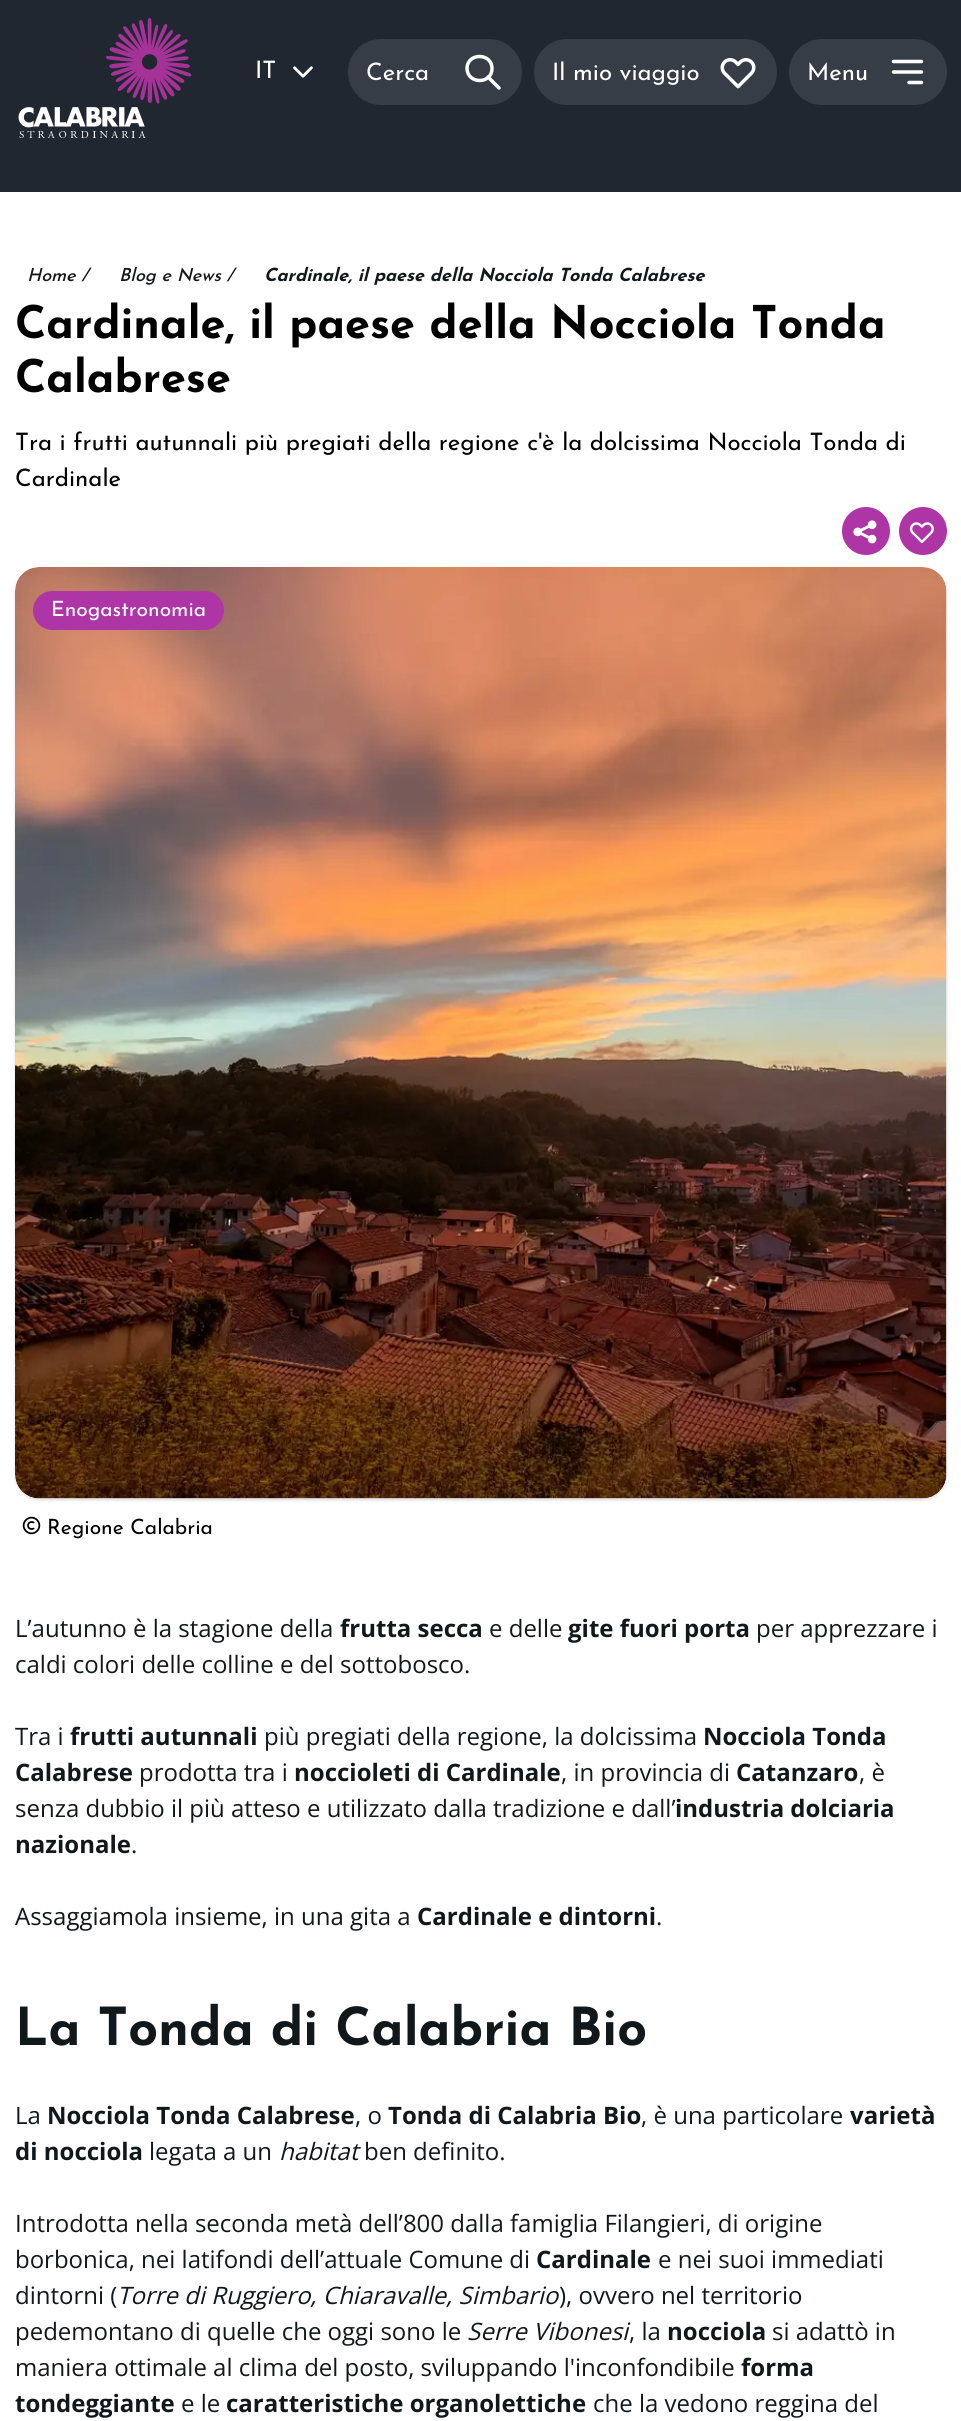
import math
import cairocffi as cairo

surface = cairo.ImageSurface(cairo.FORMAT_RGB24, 961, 2421)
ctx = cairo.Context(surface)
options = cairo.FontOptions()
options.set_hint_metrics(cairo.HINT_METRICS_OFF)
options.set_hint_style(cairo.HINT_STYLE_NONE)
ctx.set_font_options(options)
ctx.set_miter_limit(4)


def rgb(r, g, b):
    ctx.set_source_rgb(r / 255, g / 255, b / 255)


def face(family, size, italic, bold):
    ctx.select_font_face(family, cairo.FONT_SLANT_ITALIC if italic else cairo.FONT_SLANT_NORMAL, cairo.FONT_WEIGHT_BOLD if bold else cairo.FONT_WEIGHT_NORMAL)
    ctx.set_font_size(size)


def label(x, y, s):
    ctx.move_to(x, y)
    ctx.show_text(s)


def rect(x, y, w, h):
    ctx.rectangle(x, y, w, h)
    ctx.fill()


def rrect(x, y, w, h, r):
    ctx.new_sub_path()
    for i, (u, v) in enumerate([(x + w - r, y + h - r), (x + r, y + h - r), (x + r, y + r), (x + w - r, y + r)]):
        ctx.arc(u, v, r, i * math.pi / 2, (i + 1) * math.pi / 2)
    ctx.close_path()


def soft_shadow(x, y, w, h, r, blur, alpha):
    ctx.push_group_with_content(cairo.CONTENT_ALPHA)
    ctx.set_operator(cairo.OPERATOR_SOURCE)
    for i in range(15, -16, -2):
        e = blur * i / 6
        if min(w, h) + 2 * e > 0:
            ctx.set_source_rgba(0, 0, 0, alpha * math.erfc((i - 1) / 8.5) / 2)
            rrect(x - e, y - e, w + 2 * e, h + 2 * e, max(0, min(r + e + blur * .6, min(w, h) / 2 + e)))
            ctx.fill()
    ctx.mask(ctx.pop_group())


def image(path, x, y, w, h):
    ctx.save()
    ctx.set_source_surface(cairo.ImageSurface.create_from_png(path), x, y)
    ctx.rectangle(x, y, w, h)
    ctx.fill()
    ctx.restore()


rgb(33, 39, 49)
ctx.paint()
image('image0.png', 18, 18, 174, 120)
face('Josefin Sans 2 Thin', 24, 0, 0)
rgb(255, 255, 255)
label(255, 78, 'IT')
image('image1.png', 293, 66, 20, 12)
rgb(55, 61, 70)
rrect(348, 39, 174, 66, 33)
ctx.fill()
rgb(255, 255, 255)
label(366, 80, 'Cerca')
ctx.new_path()
ctx.move_to(499, 88)
ctx.line_to(488, 77)
ctx.move_to(492, 68.5)
ctx.curve_to(492, 84.5, 467.5, 84.5, 467, 68.5)
ctx.curve_to(467, 52.5, 492, 52.5, 492, 68.5)
ctx.close_path()
ctx.set_line_width(3.5)
ctx.set_line_cap(cairo.LINE_CAP_ROUND)
ctx.set_line_join(cairo.LINE_JOIN_ROUND)
ctx.stroke()
rgb(55, 61, 70)
rrect(534, 39, 243, 66, 33)
ctx.fill()
rgb(255, 255, 255)
label(552, 80, 'Il mio viaggio')
image('image2.png', 720, 58, 36, 31)
rgb(55, 61, 70)
rrect(789, 39, 158, 66, 33)
ctx.fill()
rgb(255, 255, 255)
label(807, 80, 'Menu')
ctx.new_path()
ctx.move_to(893.5, 61.5)
ctx.line_to(921.5, 61.5)
ctx.move_to(893.5, 72)
ctx.line_to(921.5, 72)
ctx.move_to(909, 82.5)
ctx.line_to(921.5, 82.5)
ctx.stroke()
rect(0, 192, 961, 2229)
face('Josefin Sans Thin', 18, 1, 0)
rgb(17, 24, 28)
label(27, 281, 'Home /')
label(119, 281, 'Blog e News /')
face('Josefin Sans 2 Thin', 18, 1, 0)
label(264, 281, 'Cardinale, il paese della Nocciola Tonda Calabrese')
face('Josefin Sans Thin', 45, 0, 0)
rgb(0, 0, 0)
label(15, 338, 'Cardinale, il paese della Nocciola Tonda')
label(15, 392, 'Calabrese')
face('Josefin Sans 2 Thin', 24, 0, 0)
label(15, 450, 'Tra i frutti autunnali più pregiati della regione c\'è la dolcissima Nocciola Tonda di')
label(15, 486, 'Cardinale')
rgb(174, 53, 165)
ctx.new_path()
ctx.arc(866, 531, 24, 0, 2 * math.pi)
ctx.fill()
image('image3.png', 853, 520, 24, 24)
ctx.arc(923, 531, 24, 0, 2 * math.pi)
ctx.fill()
image('image4.png', 909, 522, 25, 22)
rgb(0, 0, 0)
soft_shadow(17, 570, 928, 929, 23, 1.5, 0.1)
soft_shadow(15, 569, 932, 931, 24, 2, 0.1)
image('image5.png', 15, 567, 932, 932)
rgb(174, 53, 165)
rrect(33, 591, 191, 39, 19.5)
ctx.fill()
face('Josefin Sans 2 Thin', 21, 0, 0)
rgb(255, 255, 255)
label(51, 616, 'Enogastronomia')
image('image6.png', 22, 1516, 19, 19)
rgb(0, 0, 0)
label(47, 1534, 'Regione Calabria')
face('Open Sans', 24, 0, 0)
rgb(17, 24, 28)
label(15, 1637, 'L’autunno è la stagione della')
face('Open Sans', 24, 0, 1)
label(340, 1637, 'frutta secca')
face('Open Sans', 24, 0, 0)
label(489, 1637, 'e delle')
face('Open Sans', 24, 0, 1)
label(568, 1637, 'gite fuori porta')
face('Open Sans', 24, 0, 0)
label(756, 1637, 'per apprezzare i')
label(15, 1673, 'caldi colori delle colline e del sottobosco.')
label(15, 1745, 'Tra i')
face('Open Sans', 24, 0, 1)
label(70, 1745, 'frutti autunnali')
face('Open Sans', 24, 0, 0)
label(264, 1745, 'più pregiati della regione, la dolcissima')
face('Open Sans', 24, 0, 1)
label(703, 1745, 'Nocciola Tonda')
label(15, 1781, 'Calabrese')
face('Open Sans', 24, 0, 0)
label(139, 1781, 'prodotta tra i')
face('Open Sans', 24, 0, 1)
label(294, 1781, 'noccioleti di Cardinale')
face('Open Sans', 24, 0, 0)
label(561, 1781, ', in provincia di')
face('Open Sans', 24, 0, 1)
label(736, 1781, 'Catanzaro')
face('Open Sans', 24, 0, 0)
label(859, 1781, ', è')
label(15, 1817, 'senza dubbio il più atteso e utilizzato dalla tradizione e dall’')
face('Open Sans', 24, 0, 1)
label(675, 1817, 'industria dolciaria')
label(15, 1853, 'nazionale')
face('Open Sans', 24, 0, 0)
label(131, 1853, '.')
label(15, 1925, 'Assaggiamola insieme, in una gita a')
face('Open Sans', 24, 0, 1)
label(417, 1925, 'Cardinale e dintorni')
face('Open Sans', 24, 0, 0)
label(656, 1925, '.')
face('Josefin Sans Thin', 52.25, 0, 0)
label(15, 2045, 'La Tonda di Calabria Bio')
face('Open Sans', 24, 0, 0)
label(15, 2124, 'La')
face('Open Sans', 24, 0, 1)
label(47, 2124, 'Nocciola Tonda Calabrese')
face('Open Sans', 24, 0, 0)
label(355, 2124, ', o')
face('Open Sans', 24, 0, 1)
label(388, 2124, 'Tonda di Calabria Bio')
face('Open Sans', 24, 0, 0)
label(641, 2124, ', è una particolare')
face('Open Sans', 24, 0, 1)
label(850, 2124, 'varietà')
label(15, 2160, 'di nocciola')
face('Open Sans', 24, 0, 0)
label(149, 2160, 'legata a un')
face('Open Sans', 24, 1, 0)
label(279, 2160, 'habitat')
face('Open Sans', 24, 0, 0)
label(364, 2160, 'ben definito.')
label(15, 2232, 'Introdotta nella seconda metà dell’800 dalla famiglia Filangieri, di origine')
label(15, 2268, 'borbonica, nei latifondi dell’attuale Comune di')
face('Open Sans', 24, 0, 1)
label(536, 2268, 'Cardinale')
face('Open Sans', 24, 0, 0)
label(658, 2268, 'e nei suoi immediati')
label(15, 2304, 'dintorni (')
face('Open Sans', 24, 1, 0)
label(117, 2304, 'Torre di Ruggiero, Chiaravalle, Simbario')
face('Open Sans', 24, 0, 0)
label(559, 2304, '), ovvero nel territorio')
label(15, 2340, 'pedemontano di quelle che oggi sono le')
face('Open Sans', 24, 1, 0)
label(467, 2340, 'Serre Vibonesi')
face('Open Sans', 24, 0, 0)
label(629, 2340, ', la')
face('Open Sans', 24, 0, 1)
label(667, 2340, 'nocciola')
face('Open Sans', 24, 0, 0)
label(772, 2340, 'si adattò in')
label(15, 2376, 'maniera ottimale al clima del posto, sviluppando l\'inconfondibile')
face('Open Sans', 24, 0, 1)
label(741, 2376, 'forma')
label(15, 2412, 'tondeggiante')
face('Open Sans', 24, 0, 0)
label(181, 2412, 'e le')
face('Open Sans', 24, 0, 1)
label(226, 2412, 'caratteristiche organolettiche')
face('Open Sans', 24, 0, 0)
label(593, 2412, 'che la vedono reggina del')
surface.write_to_png('render.png')
